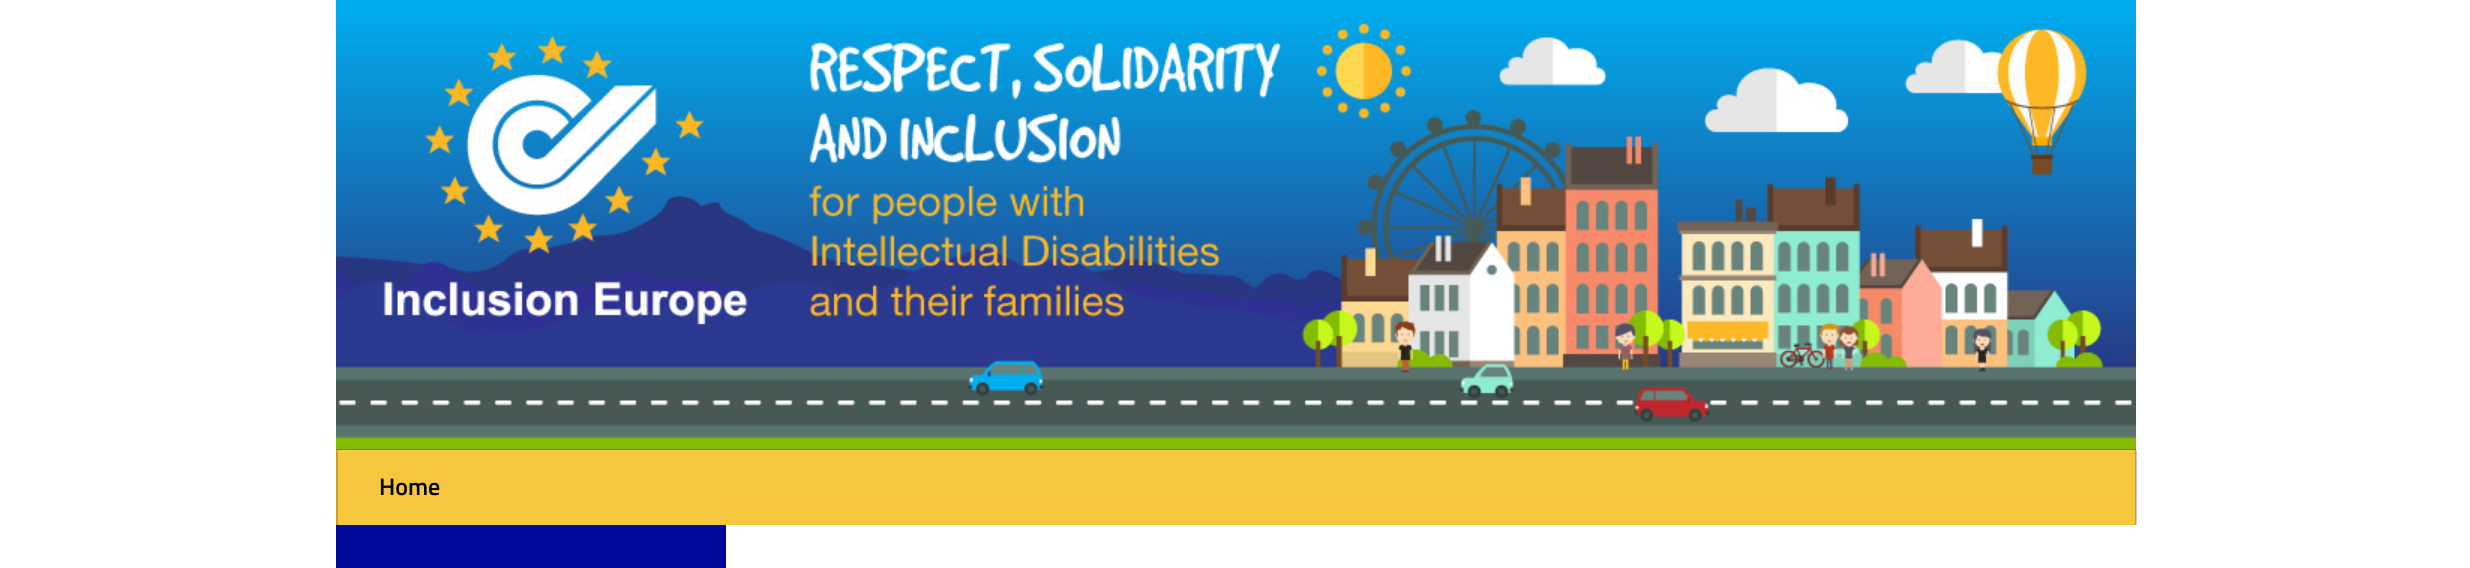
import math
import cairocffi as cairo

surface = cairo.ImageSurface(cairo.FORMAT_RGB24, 2470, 568)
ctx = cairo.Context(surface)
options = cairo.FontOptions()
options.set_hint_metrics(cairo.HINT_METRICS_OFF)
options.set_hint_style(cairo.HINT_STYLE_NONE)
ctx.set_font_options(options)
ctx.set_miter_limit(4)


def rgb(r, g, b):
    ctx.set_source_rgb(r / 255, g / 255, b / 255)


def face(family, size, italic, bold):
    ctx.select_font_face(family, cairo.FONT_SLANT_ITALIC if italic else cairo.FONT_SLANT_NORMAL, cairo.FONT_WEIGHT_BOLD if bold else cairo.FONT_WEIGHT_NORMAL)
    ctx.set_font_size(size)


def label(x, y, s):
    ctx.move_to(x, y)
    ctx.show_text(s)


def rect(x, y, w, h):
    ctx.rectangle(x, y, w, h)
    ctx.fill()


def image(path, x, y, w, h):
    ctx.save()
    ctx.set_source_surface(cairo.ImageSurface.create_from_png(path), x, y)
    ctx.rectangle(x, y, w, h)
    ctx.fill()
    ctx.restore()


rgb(255, 255, 255)
ctx.paint()
rgb(204, 204, 204)
rect(2136, 450, 1, 75)
image('image0.png', 336, 0, 1800, 449)
rgb(106, 150, 1)
rect(336, 449, 1800, 1)
rgb(245, 199, 61)
rect(338, 452, 1797, 73)
rgb(246, 202, 71)
rect(336, 450, 1800, 2)
rgb(196, 159, 49)
rect(2135, 450, 1, 75)
rgb(199, 164, 59)
rect(2135, 450, 1, 2)
rgb(196, 159, 49)
rect(336, 450, 2, 75)
rgb(199, 164, 59)
rect(336, 450, 2, 2)
face('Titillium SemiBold', 24, 0, 0)
rgb(0, 0, 0)
label(379, 495, 'Home')
rgb(0, 9, 153)
rect(336, 525, 390, 43)
surface.write_to_png('render.png')
